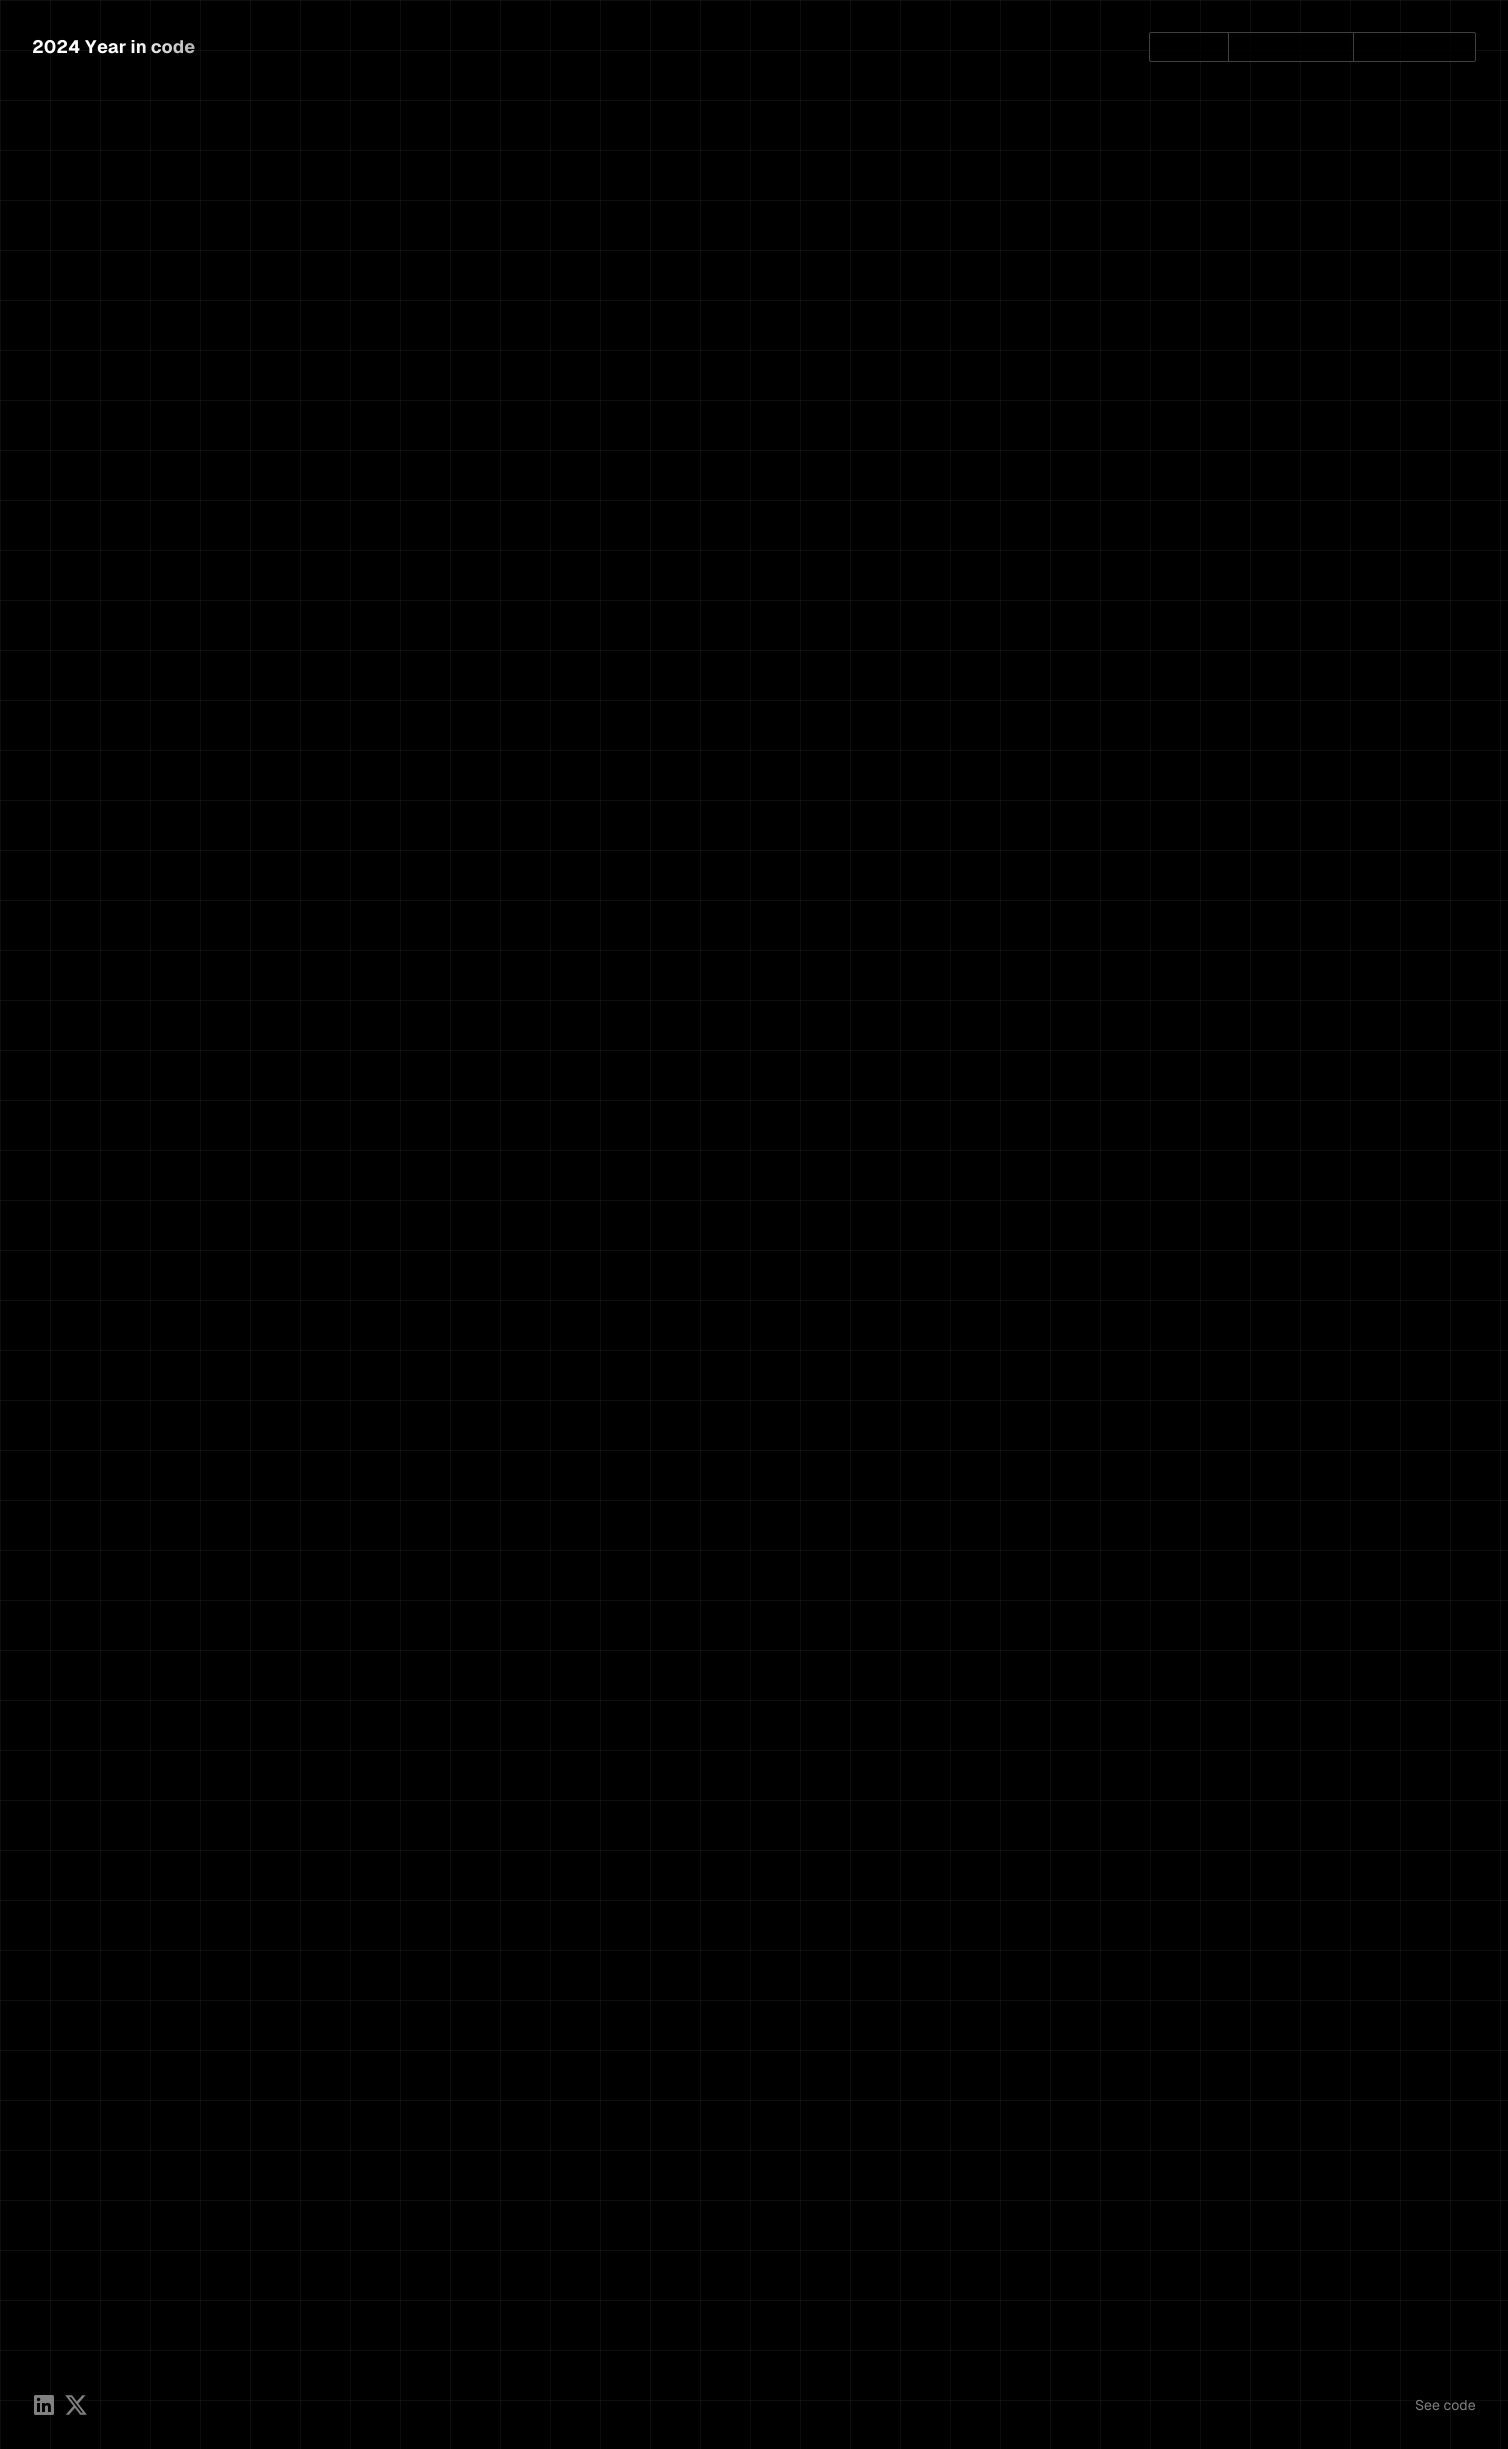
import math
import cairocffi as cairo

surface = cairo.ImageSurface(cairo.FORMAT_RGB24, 1508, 2449)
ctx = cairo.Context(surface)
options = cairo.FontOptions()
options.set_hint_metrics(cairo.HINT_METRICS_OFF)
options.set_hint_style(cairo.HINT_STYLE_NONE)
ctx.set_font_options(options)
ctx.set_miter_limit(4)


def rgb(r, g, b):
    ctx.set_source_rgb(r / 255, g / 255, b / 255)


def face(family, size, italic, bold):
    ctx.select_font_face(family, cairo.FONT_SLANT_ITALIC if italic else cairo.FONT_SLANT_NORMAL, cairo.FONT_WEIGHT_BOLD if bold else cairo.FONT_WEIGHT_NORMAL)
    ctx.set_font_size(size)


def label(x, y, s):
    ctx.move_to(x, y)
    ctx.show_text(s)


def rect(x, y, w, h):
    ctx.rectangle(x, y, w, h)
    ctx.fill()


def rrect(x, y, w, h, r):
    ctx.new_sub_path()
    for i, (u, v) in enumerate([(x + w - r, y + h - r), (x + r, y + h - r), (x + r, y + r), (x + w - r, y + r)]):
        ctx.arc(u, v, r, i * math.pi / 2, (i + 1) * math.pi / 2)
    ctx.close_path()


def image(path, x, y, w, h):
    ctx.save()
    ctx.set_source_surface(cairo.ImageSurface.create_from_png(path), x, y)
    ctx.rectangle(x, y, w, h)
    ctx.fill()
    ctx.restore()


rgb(0, 0, 0)
ctx.paint()
image('image0.png', 0, 0, 1508, 2401)
image('image1.png', 0, 0, 1501, 2449)
face('Geist', 18, 0, 1)
gradient = cairo.LinearGradient(32, 47, 195, 47)
gradient.add_color_stop_rgba(0.6, 1, 1, 1, 1)
gradient.add_color_stop_rgba(1, 0.706, 0.706, 0.706, 1)
ctx.set_source(gradient)
label(32, 53, '2024 Year in code')
ctx.set_source_rgba(0, 0, 0, 0.8)
rrect(1149.5, 32.5, 326, 29, 1.5)
ctx.fill_preserve()
rgb(64, 64, 64)
ctx.set_line_width(1)
ctx.stroke()
rect(1228, 33, 1, 28)
rect(1353, 33, 1, 28)
image('image2.png', 34, 2395, 20, 20)
image('image3.png', 65, 2395, 22, 20)
face('Geist', 14, 0, 0)
rgb(128, 128, 128)
label(1415, 2410, 'See code')
surface.write_to_png('render.png')
